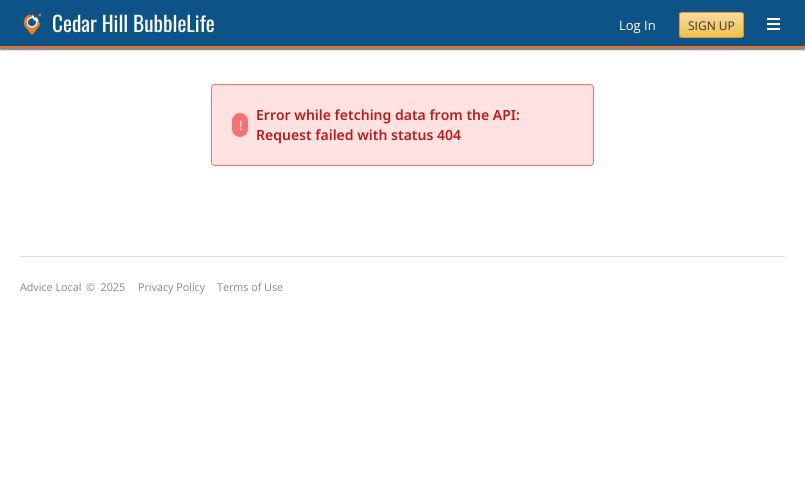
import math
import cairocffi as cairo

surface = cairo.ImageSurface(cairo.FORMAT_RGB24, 805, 494)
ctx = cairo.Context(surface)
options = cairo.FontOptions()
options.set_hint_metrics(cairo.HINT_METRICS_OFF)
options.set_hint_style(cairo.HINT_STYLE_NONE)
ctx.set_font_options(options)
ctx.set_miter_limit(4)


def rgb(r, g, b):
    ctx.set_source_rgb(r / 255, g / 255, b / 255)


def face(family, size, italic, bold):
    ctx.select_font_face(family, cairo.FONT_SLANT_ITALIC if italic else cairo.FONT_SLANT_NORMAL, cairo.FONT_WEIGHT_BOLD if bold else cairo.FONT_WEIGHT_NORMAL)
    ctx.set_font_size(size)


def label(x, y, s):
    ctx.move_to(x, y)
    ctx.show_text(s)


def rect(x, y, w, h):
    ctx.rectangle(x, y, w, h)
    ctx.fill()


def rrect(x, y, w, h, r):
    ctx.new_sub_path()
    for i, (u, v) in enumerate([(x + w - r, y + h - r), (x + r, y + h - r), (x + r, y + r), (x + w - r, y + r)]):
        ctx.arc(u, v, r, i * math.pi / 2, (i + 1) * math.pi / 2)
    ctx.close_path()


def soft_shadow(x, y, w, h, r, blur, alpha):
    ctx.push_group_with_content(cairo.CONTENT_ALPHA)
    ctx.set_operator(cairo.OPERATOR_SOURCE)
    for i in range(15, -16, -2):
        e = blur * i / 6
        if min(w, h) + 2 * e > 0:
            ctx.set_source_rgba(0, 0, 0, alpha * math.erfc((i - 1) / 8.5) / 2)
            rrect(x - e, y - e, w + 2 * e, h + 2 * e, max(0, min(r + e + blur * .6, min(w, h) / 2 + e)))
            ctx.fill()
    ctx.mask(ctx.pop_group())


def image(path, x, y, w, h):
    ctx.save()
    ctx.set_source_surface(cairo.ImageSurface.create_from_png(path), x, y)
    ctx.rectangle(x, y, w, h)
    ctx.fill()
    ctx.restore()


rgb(255, 255, 255)
ctx.paint()
rgb(136, 136, 136)
soft_shadow(0, 2, 805, 48, 0, 0.5, 1)
rgb(14, 83, 136)
rect(0, 0, 805, 46)
rgb(230, 113, 39)
rect(0, 46, 805, 2)
image('image0.png', 23, 13, 18, 22)
face('Oswald', 21.25, 0, 0)
rgb(255, 255, 255)
label(52, 32, 'Cedar Hill BubbleLife')
face('Open Sans', 13, 0, 0)
label(619, 30, 'Log In')
ctx.save()
rrect(679, 12, 65, 26, 3)
ctx.clip()
gradient = cairo.LinearGradient(712, 13, 712, 37)
gradient.add_color_stop_rgba(0, 0.969, 0.867, 0.62, 1)
gradient.add_color_stop_rgba(1, 0.929, 0.749, 0.31, 1)
ctx.set_source(gradient)
rect(679, 13, 65, 24)
ctx.restore()
rrect(679.5, 12.5, 64, 25, 2.5)
rgb(223, 149, 56)
ctx.set_line_width(1)
ctx.stroke()
face('Open Sans', 12, 0, 0)
rgb(51, 51, 51)
label(688, 30, 'SIGN UP')
image('image1.png', 767, 18, 13, 12)
rgb(254, 226, 226)
rrect(211.5, 84.5, 382, 81, 3.5)
ctx.fill_preserve()
rgb(248, 113, 113)
ctx.stroke()
rrect(232, 113, 16, 24, 8)
ctx.fill()
face('Noto Sans', 13, 0, 0)
rgb(255, 255, 255)
label(239, 130, '!')
face('Noto Sans SemiBold', 14, 0, 0)
rgb(185, 28, 28)
label(256, 120, 'Error while fetching data from the API:')
label(256, 140, 'Request failed with status 404')
rgb(221, 221, 221)
rect(20, 256, 765, 1)
face('Open Sans', 10.75, 0, 0)
rgb(136, 136, 136)
label(20, 291, 'Advice Local')
label(86, 291, '©  2025')
label(138, 291, 'Privacy Policy')
label(217, 291, 'Terms of Use')
surface.write_to_png('render.png')
